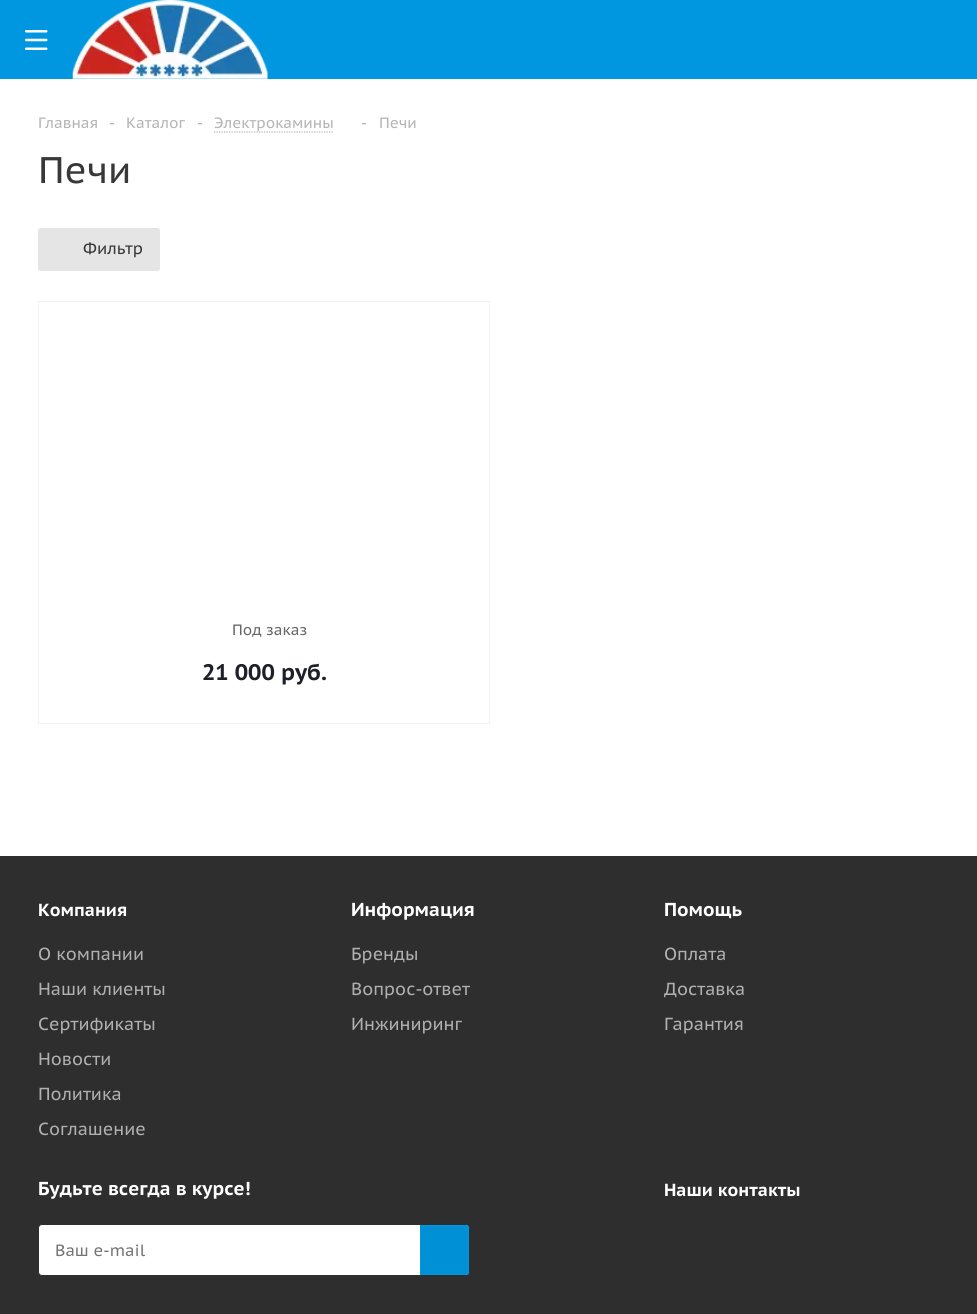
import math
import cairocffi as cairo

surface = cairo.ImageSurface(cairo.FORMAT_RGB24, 977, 1314)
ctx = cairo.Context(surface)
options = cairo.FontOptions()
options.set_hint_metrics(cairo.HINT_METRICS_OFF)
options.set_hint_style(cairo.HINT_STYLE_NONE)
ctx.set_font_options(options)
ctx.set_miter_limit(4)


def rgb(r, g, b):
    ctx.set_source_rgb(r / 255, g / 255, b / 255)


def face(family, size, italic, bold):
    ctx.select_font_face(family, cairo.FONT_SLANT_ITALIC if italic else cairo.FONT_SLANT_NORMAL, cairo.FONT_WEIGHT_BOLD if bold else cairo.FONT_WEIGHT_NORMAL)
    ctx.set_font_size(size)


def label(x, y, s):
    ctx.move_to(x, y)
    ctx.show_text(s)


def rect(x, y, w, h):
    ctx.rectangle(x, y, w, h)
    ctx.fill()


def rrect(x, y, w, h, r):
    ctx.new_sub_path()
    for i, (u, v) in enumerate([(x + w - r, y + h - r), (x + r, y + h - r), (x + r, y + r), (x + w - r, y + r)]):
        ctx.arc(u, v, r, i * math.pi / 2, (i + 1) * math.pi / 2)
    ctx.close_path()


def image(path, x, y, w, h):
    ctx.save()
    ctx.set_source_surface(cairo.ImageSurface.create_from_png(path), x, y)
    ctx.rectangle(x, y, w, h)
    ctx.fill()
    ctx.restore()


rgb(255, 255, 255)
ctx.paint()
rgb(0, 151, 224)
rect(0, 0, 977, 79)
image('image0.png', 25, 30, 23, 20)
image('image1.png', 72, 0, 196, 79)
face('PT Sans Caption', 15, 0, 0)
rgb(182, 181, 181)
label(38, 128, 'Главная')
label(109, 128, '-')
label(126, 128, 'Каталог')
label(197, 128, '-')
label(214, 128, 'Электрокамины')
ctx.new_path()
ctx.move_to(214, 132)
ctx.line_to(334, 132)
rgb(180, 180, 180)
ctx.set_line_width(1.2)
ctx.set_dash([1.25, 1.25])
ctx.stroke()
rgb(182, 181, 181)
label(361, 128, '-')
label(379, 128, 'Печи')
face('PT Sans Caption', 37, 0, 0)
rgb(56, 56, 56)
label(38, 183, 'Печи')
rgb(229, 229, 229)
rrect(38, 228, 122, 43, 2.5)
ctx.fill()
face('PT Sans Caption', 16.25, 0, 0)
rgb(56, 56, 56)
label(83, 254, 'Фильтр')
ctx.rectangle(38.5, 301.5, 451, 422)
rgb(242, 242, 242)
ctx.set_line_width(1)
ctx.set_dash([])
ctx.stroke()
face('PT Sans Caption', 15, 0, 0)
rgb(102, 102, 102)
label(232, 635, 'Под заказ')
face('PT Sans Caption', 22.5, 0, 1)
rgb(29, 32, 41)
label(202, 680, '21 000 руб.')
rgb(46, 46, 47)
rect(0, 856, 977, 458)
face('PT Sans Caption', 17.5, 0, 1)
rgb(255, 255, 255)
label(38, 916, 'Компания')
face('PT Sans Caption', 17.5, 0, 0)
rgb(176, 176, 176)
label(38, 960, 'О компании')
label(38, 995, 'Наши клиенты')
label(38, 1030, 'Сертификаты')
label(38, 1065, 'Новости')
label(38, 1100, 'Политика')
label(38, 1135, 'Соглашение')
face('PT Sans Caption', 18.75, 0, 1)
rgb(255, 255, 255)
label(351, 916, 'Информация')
face('PT Sans Caption', 17.5, 0, 0)
rgb(176, 176, 176)
label(351, 960, 'Бренды')
label(351, 995, 'Вопрос-ответ')
label(351, 1030, 'Инжиниринг')
face('PT Sans Caption', 18.75, 0, 1)
rgb(255, 255, 255)
label(664, 916, 'Помощь')
face('PT Sans Caption', 17.5, 0, 0)
rgb(176, 176, 176)
label(664, 960, 'Оплата')
label(664, 995, 'Доставка')
label(664, 1030, 'Гарантия')
face('PT Sans Caption', 18.75, 0, 1)
rgb(255, 255, 255)
label(38, 1195, 'Будьте всегда в курсе!')
ctx.new_path()
ctx.move_to(42, 1224.5)
ctx.line_to(465, 1224.5)
ctx.curve_to(467.5, 1224.5, 469.5, 1226.5, 469.5, 1229)
ctx.line_to(469.5, 1271)
ctx.curve_to(469.5, 1273.5, 467.5, 1275.5, 465, 1275.5)
ctx.line_to(42, 1275.5)
ctx.curve_to(40, 1275.5, 38.5, 1274, 38.5, 1272)
ctx.line_to(38.5, 1228)
ctx.curve_to(38.5, 1226, 40, 1224.5, 42, 1224.5)
ctx.close_path()
ctx.fill_preserve()
rgb(46, 46, 47)
ctx.stroke()
face('PT Sans Caption', 16.25, 0, 0)
rgb(117, 117, 117)
label(55, 1256, 'Ваш e-mail')
rgb(0, 144, 214)
ctx.new_path()
ctx.move_to(420.5, 1225.5)
ctx.line_to(466.5, 1225.5)
ctx.curve_to(467.5, 1225.5, 468.5, 1226.5, 468.5, 1227.5)
ctx.line_to(468.5, 1272.5)
ctx.curve_to(468.5, 1273.5, 467.5, 1274.5, 466.5, 1274.5)
ctx.line_to(420.5, 1274.5)
ctx.close_path()
ctx.fill_preserve()
rgb(0, 151, 224)
ctx.stroke()
face('PT Sans Caption', 17.5, 0, 1)
rgb(255, 255, 255)
label(664, 1196, 'Наши контакты')
surface.write_to_png('render.png')
